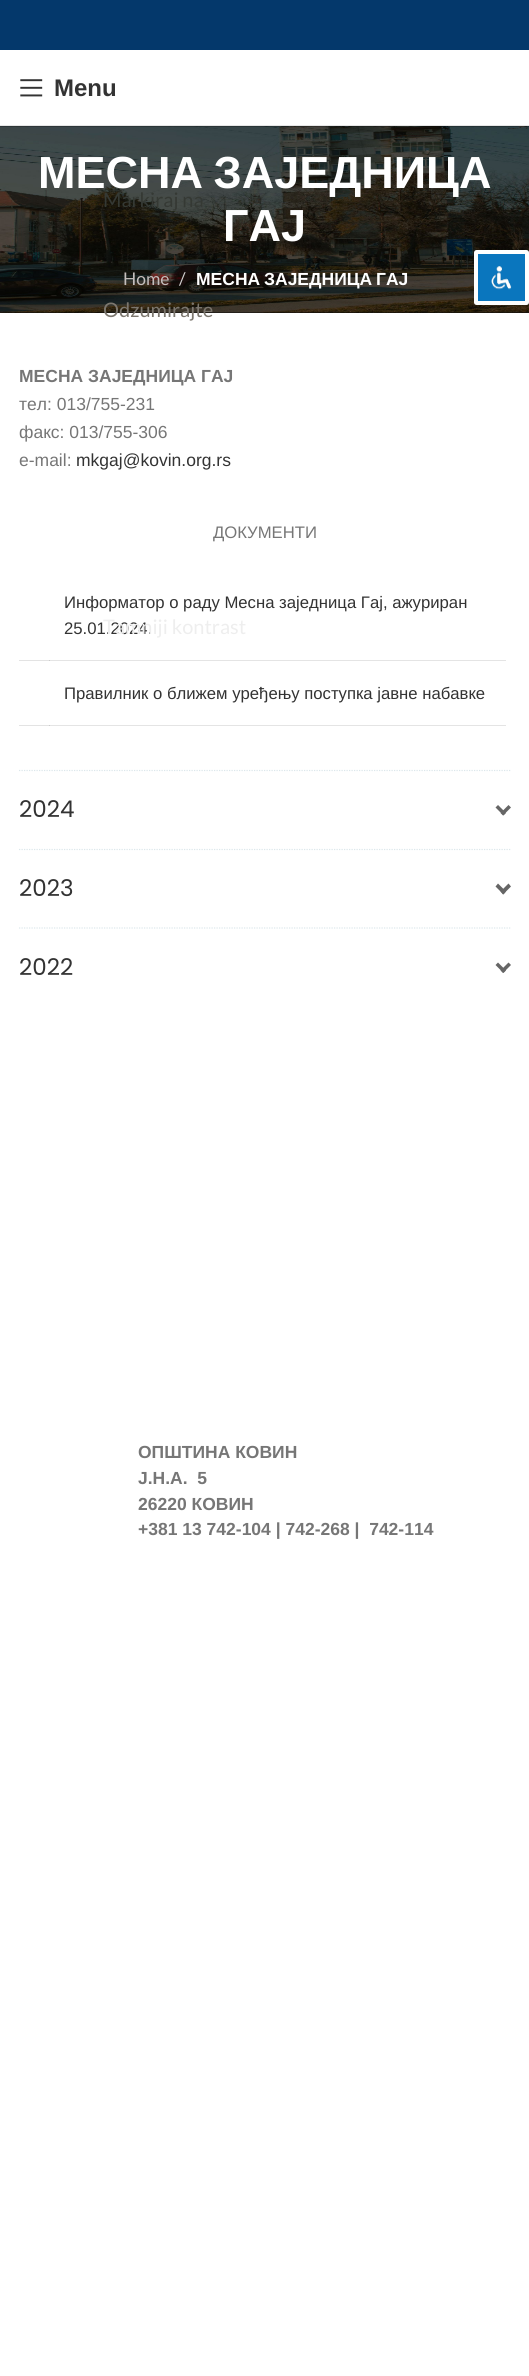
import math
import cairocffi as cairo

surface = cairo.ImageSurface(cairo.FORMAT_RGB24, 529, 2376)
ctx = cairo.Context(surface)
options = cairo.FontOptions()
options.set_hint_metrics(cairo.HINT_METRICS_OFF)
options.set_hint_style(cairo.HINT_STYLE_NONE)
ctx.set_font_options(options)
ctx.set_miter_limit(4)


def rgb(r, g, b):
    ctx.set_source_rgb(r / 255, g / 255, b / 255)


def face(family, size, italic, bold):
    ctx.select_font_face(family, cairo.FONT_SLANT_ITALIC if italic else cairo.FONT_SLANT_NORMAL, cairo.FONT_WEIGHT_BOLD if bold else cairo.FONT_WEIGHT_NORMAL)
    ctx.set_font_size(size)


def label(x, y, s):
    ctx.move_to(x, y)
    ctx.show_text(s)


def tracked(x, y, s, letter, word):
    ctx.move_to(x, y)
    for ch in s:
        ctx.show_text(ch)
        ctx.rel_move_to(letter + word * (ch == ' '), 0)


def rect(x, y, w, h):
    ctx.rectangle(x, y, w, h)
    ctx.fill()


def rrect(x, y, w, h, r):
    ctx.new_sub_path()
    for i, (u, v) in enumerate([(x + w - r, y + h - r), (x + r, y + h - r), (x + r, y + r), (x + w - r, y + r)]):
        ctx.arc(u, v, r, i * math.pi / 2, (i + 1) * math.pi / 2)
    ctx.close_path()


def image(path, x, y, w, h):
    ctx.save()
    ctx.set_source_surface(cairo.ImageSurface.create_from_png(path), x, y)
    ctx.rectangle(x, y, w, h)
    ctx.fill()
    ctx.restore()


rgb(255, 255, 255)
ctx.paint()
rgb(227, 227, 227)
rect(19, 660, 31, 1)
rect(19, 725, 31, 1)
rgb(4, 56, 107)
rect(0, 0, 529, 50)
rgb(230, 230, 230)
rect(0, 125, 529, 1)
image('image0.png', 20, 79, 23, 18)
face('Liberation Sans', 24, 0, 1)
rgb(51, 51, 51)
label(54, 96, 'Menu')
rgb(10, 10, 10)
rect(0, 126, 529, 187)
image('image1.png', 0, 126, 529, 187)
face('Liberation Sans', 45, 0, 1)
rgb(255, 255, 255)
tracked(38, 188, 'МЕСНА ЗАЈЕДНИЦА', 0, -2)
label(223, 241, 'ГАЈ')
face('Lato', 17.5, 0, 0)
rgb(195, 190, 188)
label(123, 285, 'Home')
rgb(208, 206, 206)
label(179, 285, '/')
face('Liberation Sans', 17.5, 0, 1)
rgb(255, 255, 255)
tracked(196, 285, 'МЕСНА ЗАЈЕДНИЦА ГАЈ', 0, -1)
rgb(118, 118, 118)
label(19, 382, 'МЕСНА ЗАЈЕДНИЦА ГАЈ')
face('Liberation Sans', 17.5, 0, 0)
label(19, 410, 'тел: 013/755-231')
label(19, 438, 'факс: 013/755-306')
label(19, 466, 'e-mail:')
rgb(51, 51, 51)
label(76, 466, 'mkgaj@kovin.org.rs')
face('Liberation Sans', 16.7, 0, 0)
rgb(118, 118, 118)
label(213, 538, 'ДОКУМЕНТИ')
rgb(228, 228, 228)
rect(49, 660, 457, 1)
rgb(203, 203, 203)
rect(49, 660, 1, 1)
rgb(51, 51, 51)
label(64, 608, 'Информатор о раду Месна заједница Гај, ажуриран')
label(64, 634, '25.01.2024.')
rgb(228, 228, 228)
rect(49, 725, 457, 1)
rgb(203, 203, 203)
rect(49, 725, 1, 1)
rgb(51, 51, 51)
label(64, 699, 'Правилник о ближем уређењу поступка јавне набавке')
ctx.new_path()
ctx.move_to(19, 770.5)
ctx.line_to(511, 770.5)
rgb(220, 231, 235)
ctx.set_line_width(1.2)
ctx.set_dash([1.25, 1.25])
ctx.stroke()
face('Poppins', 23, 0, 0)
rgb(51, 51, 51)
label(19, 817, '2024')
rgb(102, 102, 102)
ctx.new_path()
ctx.move_to(508.5, 805)
ctx.line_to(511, 807.5)
ctx.line_to(503, 815.5)
ctx.line_to(500.5, 813)
ctx.close_path()
ctx.fill()
ctx.new_path()
ctx.move_to(495.5, 807.5)
ctx.line_to(498, 805)
ctx.line_to(506, 813)
ctx.line_to(503.5, 815.5)
ctx.close_path()
ctx.fill()
ctx.new_path()
ctx.move_to(19, 849.5)
ctx.line_to(511, 849.5)
rgb(220, 231, 235)
ctx.stroke()
rgb(51, 51, 51)
label(19, 896, '2023')
rgb(102, 102, 102)
ctx.new_path()
ctx.move_to(508.5, 883.5)
ctx.line_to(511, 886.5)
ctx.line_to(503, 894.5)
ctx.line_to(500.5, 891.5)
ctx.close_path()
ctx.fill()
ctx.new_path()
ctx.move_to(495.5, 886.5)
ctx.line_to(498, 883.5)
ctx.line_to(506, 891.5)
ctx.line_to(503.5, 894.5)
ctx.close_path()
ctx.fill()
ctx.new_path()
ctx.move_to(19, 928)
ctx.line_to(511, 928)
rgb(220, 231, 235)
ctx.stroke()
rgb(51, 51, 51)
label(19, 975, '2022')
rgb(102, 102, 102)
ctx.new_path()
ctx.move_to(508.5, 962.5)
ctx.line_to(511, 965)
ctx.line_to(503, 973)
ctx.line_to(500.5, 970.5)
ctx.close_path()
ctx.fill()
ctx.new_path()
ctx.move_to(495.5, 965)
ctx.line_to(498, 962.5)
ctx.line_to(506, 970.5)
ctx.line_to(503.5, 973)
ctx.close_path()
ctx.fill()
face('Liberation Sans', 17.5, 0, 1)
rgb(118, 118, 118)
label(138, 1458, 'ОПШТИНА КОВИН')
label(138, 1484, 'Ј.Н.А.  5')
label(138, 1510, '26220 КОВИН')
label(138, 1535, '+381 13 742-104 | 742-268 |  742-114')
face('Lato', 20, 0, 0)
rgb(53, 57, 52)
label(103, 207, 'Markiraj na')
rgb(124, 119, 111)
label(103, 317, 'Odzumirajte')
rgb(238, 238, 238)
label(103, 634, 'Tamniji kontrast')
rgb(10, 118, 190)
rrect(476, 252, 51, 51, 0.5)
ctx.fill_preserve()
rgb(255, 255, 255)
ctx.set_line_width(4)
ctx.set_dash([])
ctx.stroke()
image('image2.png', 491, 266, 21, 24)
surface.write_to_png('render.png')
